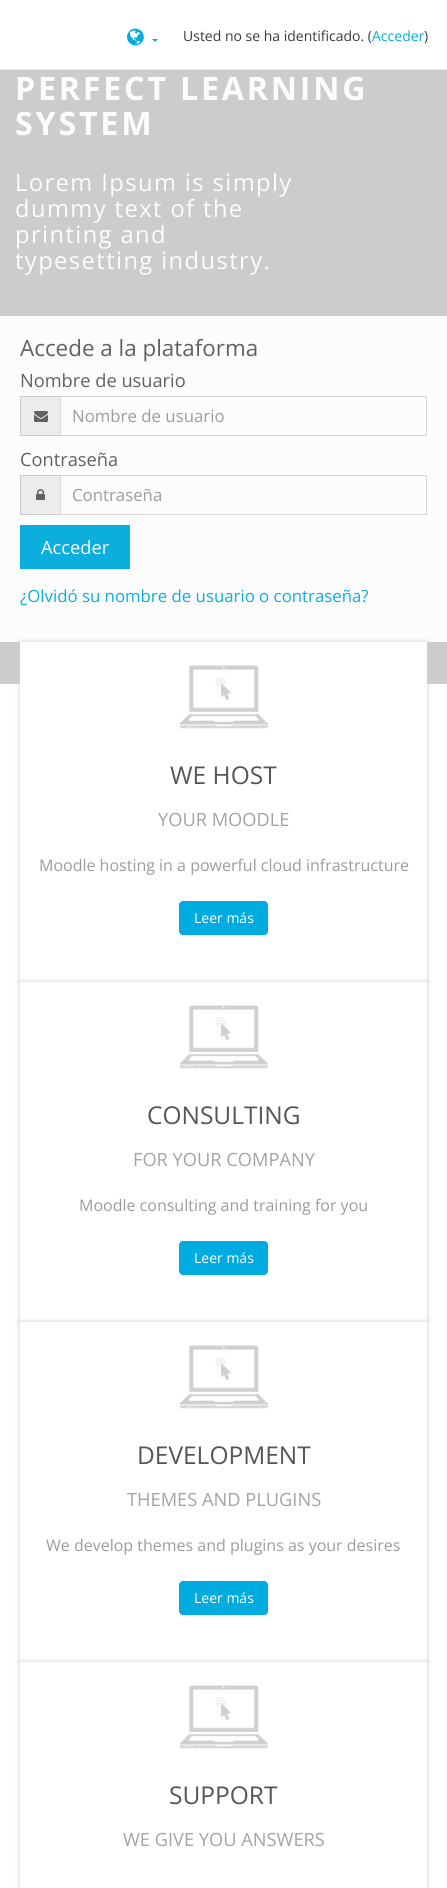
import math
import cairocffi as cairo

surface = cairo.ImageSurface(cairo.FORMAT_RGB24, 447, 1888)
ctx = cairo.Context(surface)
options = cairo.FontOptions()
options.set_hint_metrics(cairo.HINT_METRICS_OFF)
options.set_hint_style(cairo.HINT_STYLE_NONE)
ctx.set_font_options(options)
ctx.set_miter_limit(4)


def rgb(r, g, b):
    ctx.set_source_rgb(r / 255, g / 255, b / 255)


def face(family, size, italic, bold):
    ctx.select_font_face(family, cairo.FONT_SLANT_ITALIC if italic else cairo.FONT_SLANT_NORMAL, cairo.FONT_WEIGHT_BOLD if bold else cairo.FONT_WEIGHT_NORMAL)
    ctx.set_font_size(size)


def label(x, y, s):
    ctx.move_to(x, y)
    ctx.show_text(s)


def tracked(x, y, s, letter, word):
    ctx.move_to(x, y)
    for ch in s:
        ctx.show_text(ch)
        ctx.rel_move_to(letter + word * (ch == ' '), 0)


def rect(x, y, w, h):
    ctx.rectangle(x, y, w, h)
    ctx.fill()


def rrect(x, y, w, h, r):
    ctx.new_sub_path()
    for i, (u, v) in enumerate([(x + w - r, y + h - r), (x + r, y + h - r), (x + r, y + r), (x + w - r, y + r)]):
        ctx.arc(u, v, r, i * math.pi / 2, (i + 1) * math.pi / 2)
    ctx.close_path()


def soft_shadow(x, y, w, h, r, blur, alpha):
    ctx.push_group_with_content(cairo.CONTENT_ALPHA)
    ctx.set_operator(cairo.OPERATOR_SOURCE)
    for i in range(15, -16, -2):
        e = blur * i / 6
        if min(w, h) + 2 * e > 0:
            ctx.set_source_rgba(0, 0, 0, alpha * math.erfc((i - 1) / 8.5) / 2)
            rrect(x - e, y - e, w + 2 * e, h + 2 * e, max(0, min(r + e + blur * .6, min(w, h) / 2 + e)))
            ctx.fill()
    ctx.mask(ctx.pop_group())


def image(path, x, y, w, h):
    ctx.save()
    ctx.set_source_surface(cairo.ImageSurface.create_from_png(path), x, y)
    ctx.rectangle(x, y, w, h)
    ctx.fill()
    ctx.restore()


rgb(255, 255, 255)
ctx.paint()
rgb(229, 229, 229)
rect(0, 69, 447, 1)
image('image0.png', 127, 28, 17, 18)
rgb(0, 172, 223)
ctx.new_path()
ctx.move_to(152, 39)
ctx.line_to(158, 39)
ctx.line_to(155, 42)
ctx.close_path()
ctx.fill()
face('Open Sans', 14, 0, 0)
rgb(58, 58, 58)
label(183, 41, 'Usted no se ha identificado. (')
rgb(0, 172, 223)
label(372, 41, 'Acceder')
rgb(58, 58, 58)
label(424, 41, ')')
rgb(204, 204, 204)
rect(0, 70, 447, 614)
face('Open Sans', 32.25, 0, 1)
rgb(252, 252, 252)
tracked(15, 100, 'PERFECT LEARNING', 2.75, 0)
tracked(15, 135, 'SYSTEM', 2.75, 0)
face('Open Sans', 23.75, 0, 0)
tracked(15, 191, 'Lorem Ipsum is simply', 1.4, 0)
tracked(15, 217, 'dummy text of the', 1.4, 0)
tracked(15, 243, 'printing and', 1.4, 0)
tracked(15, 269, 'typesetting industry.', 1.4, 0)
rect(0, 316, 447, 326)
face('Open Sans', 22.4, 0, 0)
rgb(97, 97, 97)
label(20, 356, 'Accede a la plataforma')
face('Open Sans', 18.25, 0, 0)
label(20, 387, 'Nombre de usuario')
rgb(234, 236, 237)
rect(20, 396, 40, 40)
rgb(201, 202, 203)
ctx.new_path()
ctx.move_to(20, 396)
ctx.line_to(60, 396)
ctx.line_to(60, 397)
ctx.line_to(21, 397)
ctx.close_path()
ctx.move_to(60, 436)
ctx.line_to(20, 436)
ctx.line_to(21, 435)
ctx.line_to(60, 435)
ctx.close_path()
ctx.fill()
ctx.set_source_rgba(0.047, 0.047, 0.047, 0.15)
ctx.new_path()
ctx.move_to(20, 436)
ctx.line_to(20, 396)
ctx.line_to(21, 397)
ctx.line_to(21, 435)
ctx.close_path()
ctx.fill()
image('image1.png', 34, 411, 14, 11)
ctx.rectangle(60.5, 396.5, 366, 39)
rgb(216, 216, 216)
ctx.set_line_width(1)
ctx.stroke()
face('Open Sans', 16.8, 0, 0)
rgb(156, 156, 156)
label(72, 422, 'Nombre de usuario')
face('Open Sans', 18.25, 0, 0)
rgb(97, 97, 97)
label(20, 466, 'Contraseña')
rgb(234, 236, 237)
rect(20, 475, 40, 40)
rgb(201, 202, 203)
ctx.new_path()
ctx.move_to(20, 475)
ctx.line_to(60, 475)
ctx.line_to(60, 476)
ctx.line_to(21, 476)
ctx.close_path()
ctx.move_to(60, 515)
ctx.line_to(20, 515)
ctx.line_to(21, 514)
ctx.line_to(60, 514)
ctx.close_path()
ctx.fill()
ctx.set_source_rgba(0.047, 0.047, 0.047, 0.15)
ctx.new_path()
ctx.move_to(20, 515)
ctx.line_to(20, 475)
ctx.line_to(21, 476)
ctx.line_to(21, 514)
ctx.close_path()
ctx.fill()
image('image2.png', 36, 489, 9, 11)
ctx.rectangle(60.5, 475.5, 366, 39)
rgb(216, 216, 216)
ctx.stroke()
face('Open Sans', 16.8, 0, 0)
rgb(156, 156, 156)
label(72, 501, 'Contraseña')
rgb(12, 174, 222)
rect(20, 525, 110, 44)
face('Open Sans', 18.25, 0, 0)
rgb(252, 252, 252)
label(41, 554, 'Acceder')
face('Open Sans', 16.8, 0, 0)
rgb(12, 174, 222)
label(20, 602, '¿Olvidó su nombre de usuario o contraseña?')
rgb(204, 204, 204)
soft_shadow(20, 642, 407, 340, 0, 2.5, 1)
rgb(255, 255, 255)
rect(20, 642, 407, 340)
image('image3.png', 180, 665, 88, 64)
face('Open Sans', 24.5, 0, 0)
rgb(86, 86, 86)
label(170, 784, 'WE HOST')
face('Open Sans', 18.25, 0, 0)
rgb(164, 163, 163)
label(158, 826, 'YOUR MOODLE')
face('Open Sans', 16, 0, 0)
rgb(156, 156, 156)
label(39, 871, 'Moodle hosting in a powerful cloud infrastructure')
rgb(0, 172, 223)
rrect(179.5, 901.5, 88, 33, 3.5)
ctx.fill_preserve()
ctx.stroke()
face('Open Sans', 14, 0, 0)
rgb(252, 252, 252)
label(194, 923, 'Leer más')
rgb(204, 204, 204)
soft_shadow(20, 982, 407, 340, 0, 2.5, 1)
rgb(255, 255, 255)
rect(20, 982, 407, 340)
image('image3.png', 180, 1005, 88, 64)
face('Open Sans', 24.5, 0, 0)
rgb(86, 86, 86)
label(147, 1124, 'CONSULTING')
face('Open Sans', 18.25, 0, 0)
rgb(164, 163, 163)
label(133, 1166, 'FOR YOUR COMPANY')
face('Open Sans', 16, 0, 0)
rgb(156, 156, 156)
label(79, 1211, 'Moodle consulting and training for you')
rgb(0, 172, 223)
rrect(179.5, 1241.5, 88, 33, 3.5)
ctx.fill_preserve()
ctx.stroke()
face('Open Sans', 14, 0, 0)
rgb(252, 252, 252)
label(194, 1263, 'Leer más')
rgb(204, 204, 204)
soft_shadow(20, 1322, 407, 340, 0, 2.5, 1)
rgb(255, 255, 255)
rect(20, 1322, 407, 340)
image('image3.png', 180, 1345, 88, 64)
face('Open Sans', 24.5, 0, 0)
rgb(86, 86, 86)
label(137, 1464, 'DEVELOPMENT')
face('Open Sans', 18.25, 0, 0)
rgb(164, 163, 163)
label(127, 1506, 'THEMES AND PLUGINS')
face('Open Sans', 16, 0, 0)
rgb(156, 156, 156)
label(46, 1551, 'We develop themes and plugins as your desires')
rgb(0, 172, 223)
rrect(179.5, 1581.5, 88, 33, 3.5)
ctx.fill_preserve()
ctx.stroke()
face('Open Sans', 14, 0, 0)
rgb(252, 252, 252)
label(194, 1603, 'Leer más')
rgb(204, 204, 204)
soft_shadow(20, 1662, 407, 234, 0, 2.5, 1)
rgb(255, 255, 255)
rect(20, 1662, 407, 226)
image('image3.png', 180, 1685, 88, 64)
face('Open Sans', 24.5, 0, 0)
rgb(86, 86, 86)
label(169, 1804, 'SUPPORT')
face('Open Sans', 18.25, 0, 0)
rgb(164, 163, 163)
label(123, 1846, 'WE GIVE YOU ANSWERS')
surface.write_to_png('render.png')
